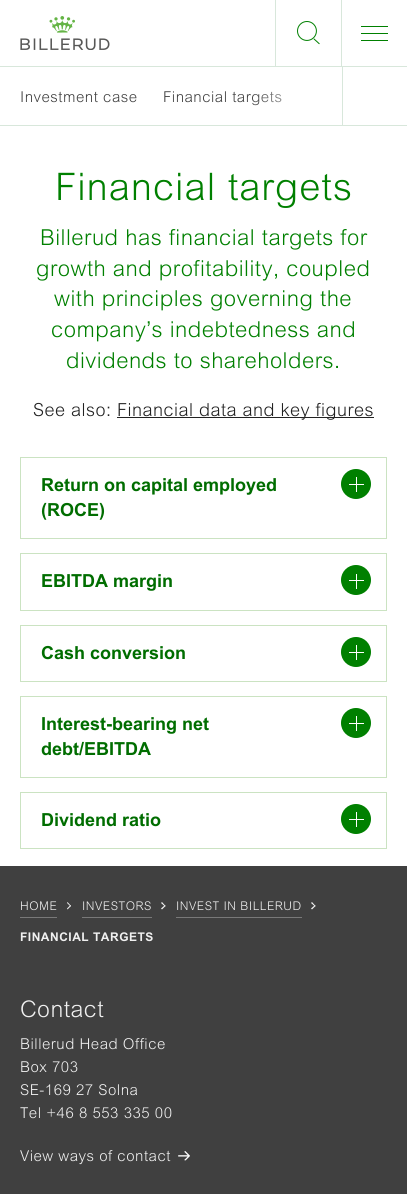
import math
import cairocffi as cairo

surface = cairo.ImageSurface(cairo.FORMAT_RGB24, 407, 1194)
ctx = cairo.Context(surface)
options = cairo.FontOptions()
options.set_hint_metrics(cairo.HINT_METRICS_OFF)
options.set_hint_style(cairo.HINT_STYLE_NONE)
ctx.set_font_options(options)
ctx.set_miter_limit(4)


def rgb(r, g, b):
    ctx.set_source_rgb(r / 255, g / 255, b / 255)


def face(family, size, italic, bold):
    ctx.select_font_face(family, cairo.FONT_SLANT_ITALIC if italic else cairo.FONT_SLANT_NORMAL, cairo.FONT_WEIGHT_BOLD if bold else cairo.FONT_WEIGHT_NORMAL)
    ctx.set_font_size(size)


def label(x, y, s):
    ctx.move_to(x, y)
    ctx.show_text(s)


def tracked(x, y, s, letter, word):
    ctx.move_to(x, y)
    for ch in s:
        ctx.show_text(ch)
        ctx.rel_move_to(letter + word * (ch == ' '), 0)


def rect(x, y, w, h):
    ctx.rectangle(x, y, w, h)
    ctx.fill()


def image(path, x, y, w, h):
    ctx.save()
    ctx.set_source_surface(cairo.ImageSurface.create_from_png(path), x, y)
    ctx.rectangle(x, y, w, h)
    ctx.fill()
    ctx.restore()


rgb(255, 255, 255)
ctx.paint()
rgb(216, 231, 219)
rect(0, 66, 407, 1)
image('image0.png', 20, 16, 90, 34)
image('image1.png', 297, 21, 23, 24)
rect(275, 0, 1, 66)
rect(341, 0, 1, 66)
rgb(0, 128, 0)
rect(361, 26, 27, 1)
rect(361, 40, 27, 1)
rect(361, 33, 27, 1)
rgb(216, 231, 219)
rect(0, 125, 407, 1)
face('Arial Light', 15, 0, 0)
rgb(64, 64, 64)
tracked(20, 102, 'Investment case', 0.5, 0)
tracked(163, 102, 'Financial targets', 0.5, 0)
gradient = cairo.LinearGradient(251, 96, 341, 96)
gradient.add_color_stop_rgba(0, 1, 1, 1, 0)
gradient.add_color_stop_rgba(0.9, 1, 1, 1, 1)
gradient.add_color_stop_rgba(1, 1, 1, 1, 1)
ctx.set_source(gradient)
rect(253, 91, 28, 14)
rgb(216, 231, 219)
rect(342, 67, 1, 58)
face('Arial Light', 38, 0, 0)
rgb(0, 128, 0)
tracked(55, 200, 'Financial targets', 1, 0)
face('Arial Light', 22, 0, 0)
tracked(40, 245, 'Billerud has financial targets for', 0.5, 0)
tracked(36, 276, 'growth and profitability, coupled', 0.5, 0)
tracked(54, 306, 'with principles governing the', 0.5, 0)
tracked(51, 337, 'company’s indebtedness and', 0.5, 0)
tracked(66, 368, 'dividends to shareholders.', 0.5, 0)
face('Arial Light', 18, 0, 0)
rgb(34, 34, 34)
tracked(33, 416, 'See also:', 0.5, 0)
rect(117, 417, 257, 1)
tracked(117, 416, 'Financial data and key figures', 0.5, 0)
ctx.rectangle(20.5, 457.5, 366, 81)
rgb(203, 227, 194)
ctx.set_line_width(1)
ctx.stroke()
face('Arial', 18, 0, 1)
rgb(0, 109, 0)
label(41, 491, 'Return on capital employed')
rgb(0, 128, 0)
ctx.new_path()
ctx.arc(356, 484, 15, 0, 2 * math.pi)
ctx.fill()
rgb(255, 255, 255)
rect(356, 477, 1, 15)
rect(349, 484, 15, 1)
rgb(0, 109, 0)
label(41, 516, '(ROCE)')
ctx.rectangle(20.5, 553.5, 366, 57)
rgb(203, 227, 194)
ctx.stroke()
rgb(0, 109, 0)
label(41, 587, 'EBITDA margin')
rgb(0, 128, 0)
ctx.new_path()
ctx.arc(356, 580, 15, 0, 2 * math.pi)
ctx.fill()
rgb(255, 255, 255)
rect(356, 574, 1, 15)
rect(349, 580, 15, 1)
ctx.rectangle(20.5, 625.5, 366, 56)
rgb(203, 227, 194)
ctx.stroke()
rgb(0, 109, 0)
label(41, 659, 'Cash conversion')
rgb(0, 128, 0)
ctx.new_path()
ctx.arc(356, 652, 15, 0, 2 * math.pi)
ctx.fill()
rgb(255, 255, 255)
rect(356, 645, 1, 15)
rect(349, 652, 15, 1)
ctx.rectangle(20.5, 696.5, 366, 81)
rgb(203, 227, 194)
ctx.stroke()
rgb(0, 109, 0)
label(41, 730, 'Interest-bearing net')
rgb(0, 128, 0)
ctx.new_path()
ctx.arc(356, 723, 15, 0, 2 * math.pi)
ctx.fill()
rgb(255, 255, 255)
rect(356, 716, 1, 15)
rect(349, 723, 15, 1)
rgb(0, 109, 0)
label(41, 755, 'debt/EBITDA')
ctx.rectangle(20.5, 792.5, 366, 56)
rgb(203, 227, 194)
ctx.stroke()
rgb(0, 109, 0)
label(41, 826, 'Dividend ratio')
rgb(0, 128, 0)
ctx.new_path()
ctx.arc(356, 819, 15, 0, 2 * math.pi)
ctx.fill()
rgb(255, 255, 255)
rect(356, 812, 1, 15)
rect(349, 819, 15, 1)
rgb(64, 64, 64)
rect(0, 866, 407, 328)
face('Arial Light', 12, 0, 0)
rgb(240, 240, 240)
tracked(20, 910, 'HOME', 0.5, 0)
rgb(121, 121, 121)
rect(20, 917, 37, 1)
rgb(240, 240, 240)
ctx.new_path()
ctx.move_to(67.5, 902)
ctx.line_to(71, 906)
ctx.line_to(70.5, 906.5)
ctx.line_to(67, 903)
ctx.close_path()
ctx.fill()
ctx.new_path()
ctx.move_to(70.5, 905)
ctx.line_to(71, 906)
ctx.line_to(67.5, 909.5)
ctx.line_to(67, 908.5)
ctx.close_path()
ctx.fill()
tracked(82, 910, 'INVESTORS', 0.5, 0)
rgb(121, 121, 121)
rect(82, 917, 70, 1)
rgb(240, 240, 240)
ctx.new_path()
ctx.move_to(162, 902)
ctx.line_to(165.5, 906)
ctx.line_to(165, 906.5)
ctx.line_to(161, 903)
ctx.close_path()
ctx.fill()
ctx.new_path()
ctx.move_to(165, 905)
ctx.line_to(165.5, 906)
ctx.line_to(162, 909.5)
ctx.line_to(161, 908.5)
ctx.close_path()
ctx.fill()
tracked(176, 910, 'INVEST IN BILLERUD', 0.5, 0)
rgb(121, 121, 121)
rect(176, 917, 126, 1)
rgb(240, 240, 240)
ctx.new_path()
ctx.move_to(312, 902)
ctx.line_to(315.5, 906)
ctx.line_to(315, 906.5)
ctx.line_to(311, 903)
ctx.close_path()
ctx.fill()
ctx.new_path()
ctx.move_to(315, 905)
ctx.line_to(315.5, 906)
ctx.line_to(312, 909.5)
ctx.line_to(311, 908.5)
ctx.close_path()
ctx.fill()
face('Arial', 12, 0, 1)
tracked(20, 941, 'FINANCIAL TARGETS', 0.5, 0)
face('Arial Light', 23, 0, 0)
tracked(20, 1017, 'Contact', 0.5, 0)
face('Arial Light', 15, 0, 0)
tracked(20, 1049, 'Billerud Head Office', 0.5, 0)
tracked(20, 1072, 'Box 703', 0.5, 0)
tracked(20, 1095, 'SE-169 27 Solna', 0.5, 0)
tracked(20, 1118, 'Tel +46 8 553 335 00', 0.5, 0)
tracked(20, 1161, 'View ways of contact', 0.5, 0)
image('image2.png', 178, 1151, 12, 10)
surface.write_to_png('render.png')
